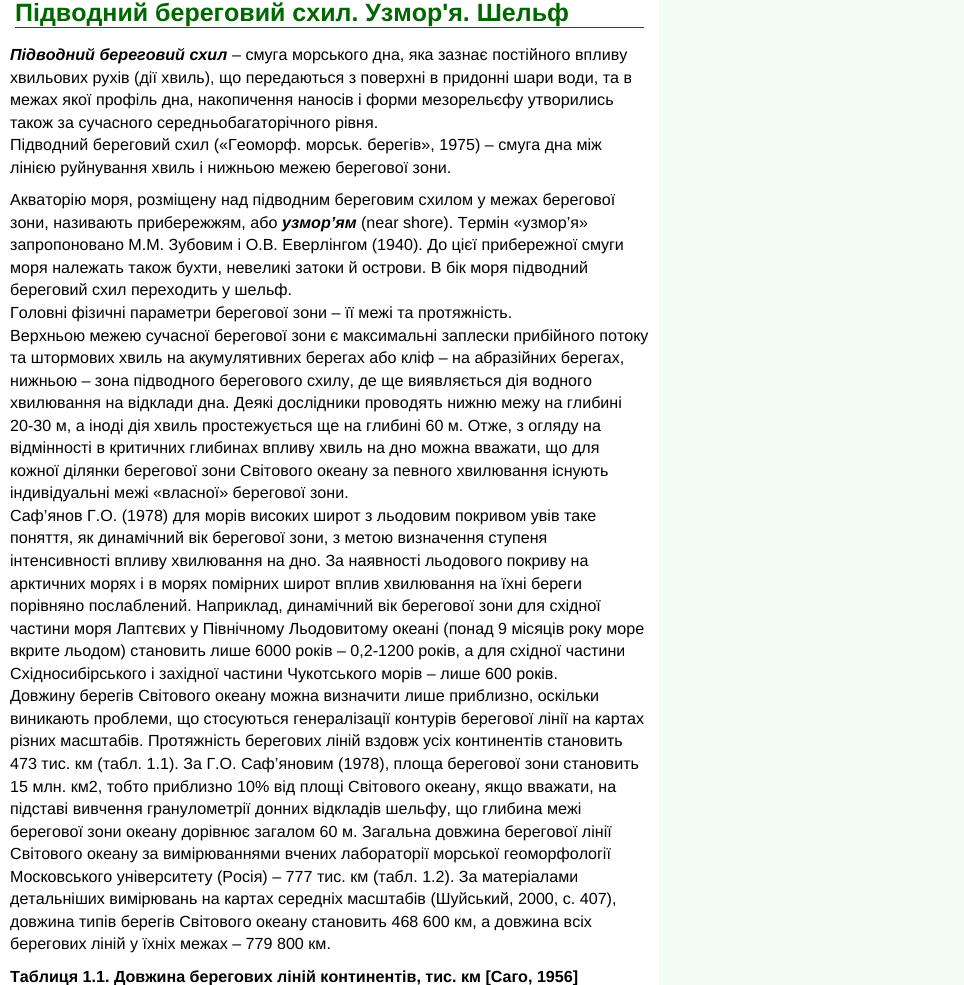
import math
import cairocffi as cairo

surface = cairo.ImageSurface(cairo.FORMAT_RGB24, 964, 985)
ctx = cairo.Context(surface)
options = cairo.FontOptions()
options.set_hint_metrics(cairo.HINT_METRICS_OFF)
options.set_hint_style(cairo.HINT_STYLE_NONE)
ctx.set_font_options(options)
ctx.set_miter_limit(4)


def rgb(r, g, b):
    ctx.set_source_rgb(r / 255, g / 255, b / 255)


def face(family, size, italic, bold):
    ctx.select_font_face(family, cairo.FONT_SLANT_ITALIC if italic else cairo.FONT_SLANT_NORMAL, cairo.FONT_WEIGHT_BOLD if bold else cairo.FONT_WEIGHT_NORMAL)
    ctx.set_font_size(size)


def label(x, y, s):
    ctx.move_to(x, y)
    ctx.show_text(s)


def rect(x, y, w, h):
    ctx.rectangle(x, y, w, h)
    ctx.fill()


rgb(255, 255, 255)
ctx.paint()
rgb(242, 253, 248)
rect(659, 0, 305, 985)
rgb(0, 102, 0)
rect(15, 27, 629, 1)
face('Liberation Sans', 25, 0, 1)
label(15, 21, 'Підводний береговий схил. Узмор\'я. Шельф')
face('Liberation Sans', 16.1, 1, 1)
rgb(0, 0, 0)
label(10, 60, 'Підводний береговий схил')
face('Liberation Sans', 16.1, 0, 0)
label(232, 60, '– смуга морського дна, яка зазнає постійного впливу')
label(10, 83, 'хвильових рухів (дії хвиль), що передаються з поверхні в придонні шари води, та в')
label(10, 105, 'межах якої профіль дна, накопичення наносів і форми мезорельєфу утворились')
label(10, 128, 'також за сучасного середньобагаторічного рівня.')
label(10, 150, 'Підводний береговий схил («Геоморф. морськ. берегів», 1975) – смуга дна між')
label(10, 173, 'лінією руйнування хвиль і нижньою межею берегової зони.')
label(10, 205, 'Акваторію моря, розміщену над підводним береговим схилом у межах берегової')
label(10, 228, 'зони, називають прибережжям, або')
face('Liberation Sans', 16.1, 1, 1)
label(282, 228, 'узмор’ям')
face('Liberation Sans', 16.1, 0, 0)
label(361, 228, '(near shore). Термін «узмор’я»')
label(10, 250, 'запропоновано М.М. Зубовим і О.В. Еверлінгом (1940). До цієї прибережної смуги')
label(10, 273, 'моря належать також бухти, невеликі затоки й острови. В бік моря підводний')
label(10, 295, 'береговий схил переходить у шельф.')
label(10, 318, 'Головні фізичні параметри берегової зони – її межі та протяжність.')
label(10, 341, 'Верхньою межею сучасної берегової зони є максимальні заплески прибійного потоку')
label(10, 363, 'та штормових хвиль на акумулятивних берегах або кліф – на абразійних берегах,')
label(10, 386, 'нижньою – зона підводного берегового схилу, де ще виявляється дія водного')
label(10, 408, 'хвилювання на відклади дна. Деякі дослідники проводять нижню межу на глибині')
label(10, 431, '20-30 м, а іноді дія хвиль простежується ще на глибині 60 м. Отже, з огляду на')
label(10, 453, 'відмінності в критичних глибинах впливу хвиль на дно можна вважати, що для')
label(10, 476, 'кожної ділянки берегової зони Світового океану за певного хвилювання існують')
label(10, 498, 'індивідуальні межі «власної» берегової зони.')
label(10, 521, 'Саф’янов Г.О. (1978) для морів високих широт з льодовим покривом увів таке')
label(10, 543, 'поняття, як динамічний вік берегової зони, з метою визначення ступеня')
label(10, 566, 'інтенсивності впливу хвилювання на дно. За наявності льодового покриву на')
label(10, 589, 'арктичних морях і в морях помірних широт вплив хвилювання на їхні береги')
label(10, 611, 'порівняно послаблений. Наприклад, динамічний вік берегової зони для східної')
label(10, 634, 'частини моря Лаптєвих у Північному Льодовитому океані (понад 9 місяців року море')
label(10, 656, 'вкрите льодом) становить лише 6000 років – 0,2-1200 років, а для східної частини')
label(10, 679, 'Східносибірського і західної частини Чукотського морів – лише 600 років.')
label(10, 701, 'Довжину берегів Світового океану можна визначити лише приблизно, оскільки')
label(10, 724, 'виникають проблеми, що стосуються генералізації контурів берегової лінії на картах')
label(10, 746, 'різних масштабів. Протяжність берегових ліній вздовж усіх континентів становить')
label(10, 769, '473 тис. км (табл. 1.1). За Г.О. Саф’яновим (1978), площа берегової зони становить')
label(10, 792, '15 млн. км2, тобто приблизно 10% від площі Світового океану, якщо вважати, на')
label(10, 814, 'підставі вивчення гранулометрії донних відкладів шельфу, що глибина межі')
label(10, 837, 'берегової зони океану дорівнює загалом 60 м. Загальна довжина берегової лінії')
label(10, 859, 'Світового океану за вимірюваннями вчених лабораторії морської геоморфології')
label(10, 882, 'Московського університету (Росія) – 777 тис. км (табл. 1.2). За матеріалами')
label(10, 904, 'детальніших вимірювань на картах середніх масштабів (Шуйський, 2000, с. 407),')
label(10, 927, 'довжина типів берегів Світового океану становить 468 600 км, а довжина всіх')
label(10, 949, 'берегових ліній у їхніх межах – 779 800 км.')
face('Liberation Sans', 16.1, 0, 1)
label(10, 982, 'Таблиця 1.1. Довжина берегових ліній континентів, тис. км [Саго, 1956]')
surface.write_to_png('render.png')
